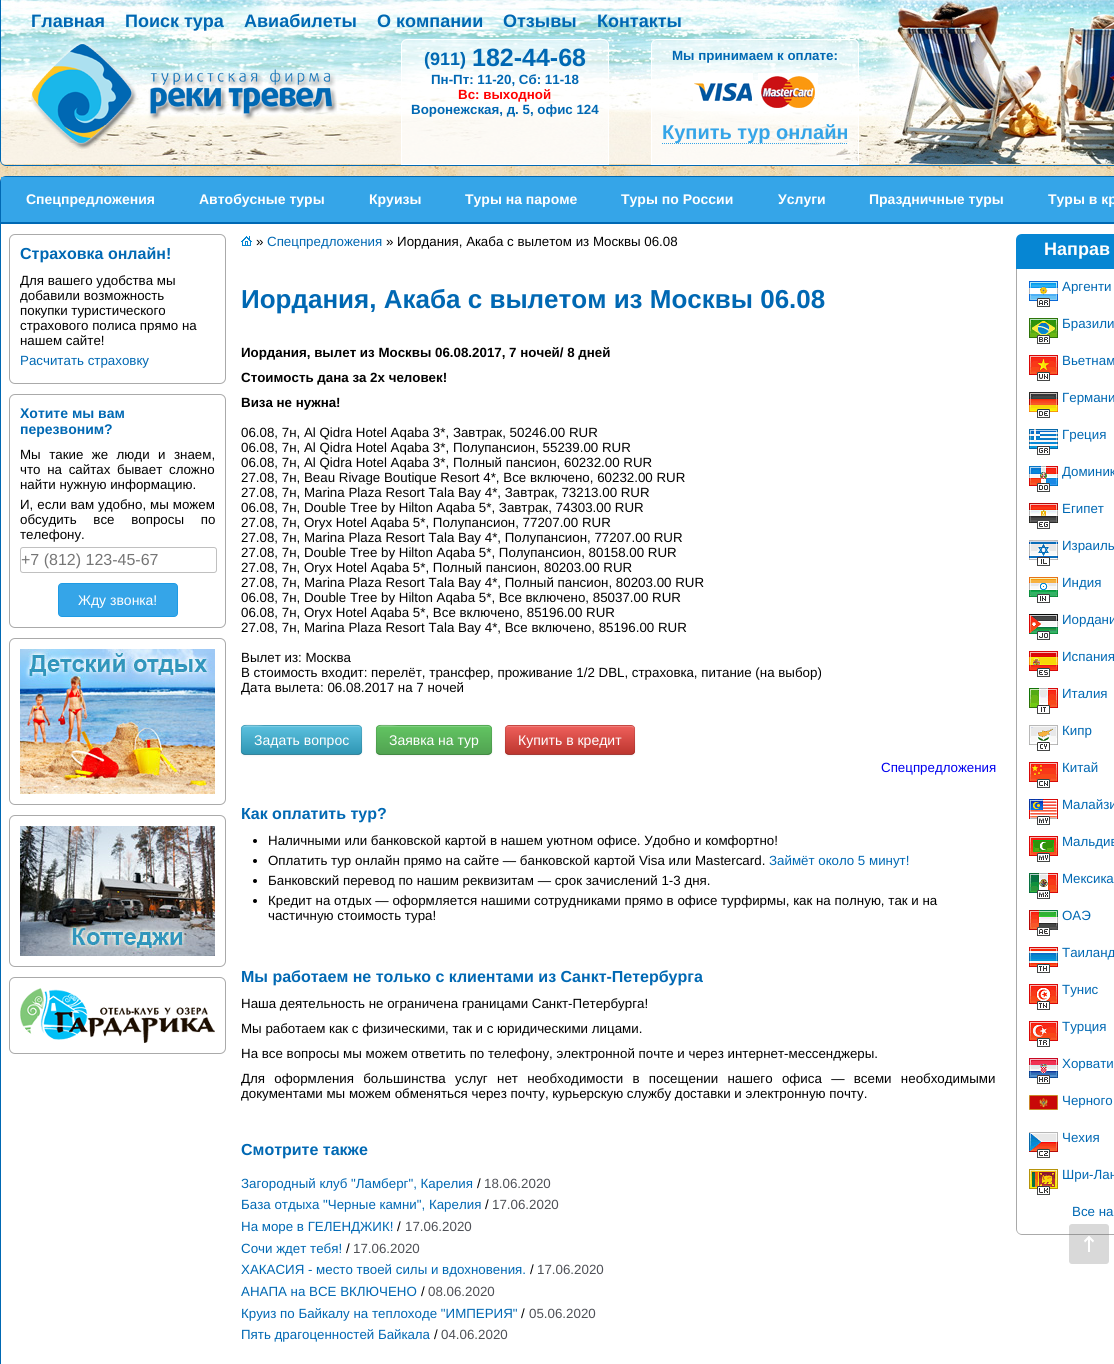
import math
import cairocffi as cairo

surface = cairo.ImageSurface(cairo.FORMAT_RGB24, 1114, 1364)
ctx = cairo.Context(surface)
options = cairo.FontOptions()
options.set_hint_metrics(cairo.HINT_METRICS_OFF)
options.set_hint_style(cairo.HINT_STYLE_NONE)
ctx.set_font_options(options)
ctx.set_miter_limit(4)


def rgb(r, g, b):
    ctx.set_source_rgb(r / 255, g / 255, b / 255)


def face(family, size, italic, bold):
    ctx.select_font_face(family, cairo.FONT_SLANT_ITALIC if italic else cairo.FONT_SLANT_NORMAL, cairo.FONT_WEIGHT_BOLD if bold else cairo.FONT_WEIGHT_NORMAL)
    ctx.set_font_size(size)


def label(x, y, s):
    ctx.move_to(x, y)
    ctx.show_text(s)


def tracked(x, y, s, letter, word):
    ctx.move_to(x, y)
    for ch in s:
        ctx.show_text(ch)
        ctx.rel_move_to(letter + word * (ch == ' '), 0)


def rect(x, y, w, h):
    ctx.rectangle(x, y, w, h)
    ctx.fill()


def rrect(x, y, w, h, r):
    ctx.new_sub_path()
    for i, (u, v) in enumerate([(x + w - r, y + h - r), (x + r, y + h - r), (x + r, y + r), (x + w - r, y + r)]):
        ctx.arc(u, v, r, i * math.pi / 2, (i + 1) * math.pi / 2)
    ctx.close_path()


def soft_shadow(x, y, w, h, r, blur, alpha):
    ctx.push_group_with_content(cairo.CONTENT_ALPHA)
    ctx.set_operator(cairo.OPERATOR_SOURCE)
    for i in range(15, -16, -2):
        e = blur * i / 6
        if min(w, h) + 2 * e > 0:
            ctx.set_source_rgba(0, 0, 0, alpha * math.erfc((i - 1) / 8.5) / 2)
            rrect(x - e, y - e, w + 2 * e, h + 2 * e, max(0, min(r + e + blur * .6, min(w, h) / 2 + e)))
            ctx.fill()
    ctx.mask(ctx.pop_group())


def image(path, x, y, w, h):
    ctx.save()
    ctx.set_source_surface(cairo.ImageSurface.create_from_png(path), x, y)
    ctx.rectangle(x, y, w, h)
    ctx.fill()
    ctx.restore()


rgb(255, 255, 255)
ctx.paint()
image('image0.png', 0, 160, 1114, 22)
image('image1.png', 1, 0, 1113, 164)
rgb(0, 104, 179)
ctx.set_fill_rule(cairo.FILL_RULE_EVEN_ODD)
ctx.new_path()
ctx.move_to(0, 0)
ctx.line_to(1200, 0)
ctx.line_to(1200, 160)
ctx.curve_to(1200, 163, 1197, 166, 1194, 166)
ctx.line_to(6, 166)
ctx.curve_to(3, 166, 0, 163, 0, 160)
ctx.close_path()
ctx.move_to(1, 0)
ctx.line_to(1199, 0)
ctx.line_to(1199, 160)
ctx.curve_to(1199, 163, 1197, 165, 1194, 165)
ctx.line_to(6, 165)
ctx.curve_to(3, 165, 1, 163, 1, 160)
ctx.close_path()
ctx.fill()
face('Liberation Sans', 18, 0, 1)
label(31, 27, 'Главная')
label(125, 27, 'Поиск тура')
label(244, 27, 'Авиабилеты')
label(377, 27, 'О компании')
label(503, 27, 'Отзывы')
label(597, 27, 'Контакты')
image('image2.png', 31, 41, 306, 108)
ctx.set_source_rgba(1, 1, 1, 0.6)
ctx.new_path()
ctx.move_to(407, 39.5)
ctx.line_to(603, 39.5)
ctx.curve_to(606, 39.5, 608.5, 42, 608.5, 45)
ctx.line_to(608.5, 164.5)
ctx.line_to(401.5, 164.5)
ctx.line_to(401.5, 45)
ctx.curve_to(401.5, 42, 404, 39.5, 407, 39.5)
ctx.close_path()
ctx.fill_preserve()
rgb(255, 255, 255)
ctx.set_line_width(1)
ctx.stroke()
rgb(0, 104, 179)
label(424, 65, '(911)')
face('Liberation Sans', 25, 0, 1)
label(472, 66, '182-44-68')
face('Liberation Sans', 13.33, 0, 1)
label(431, 84, 'Пн-Пт: 11-20, Сб: 11-18')
rgb(255, 0, 0)
label(458, 99, 'Вс: выходной')
rgb(0, 104, 179)
label(411, 114, 'Воронежская, д. 5, офис 124')
ctx.set_source_rgba(1, 1, 1, 0.6)
ctx.new_path()
ctx.move_to(657, 39.5)
ctx.line_to(853, 39.5)
ctx.curve_to(856, 39.5, 858.5, 42, 858.5, 45)
ctx.line_to(858.5, 164.5)
ctx.line_to(651.5, 164.5)
ctx.line_to(651.5, 45)
ctx.curve_to(651.5, 42, 654, 39.5, 657, 39.5)
ctx.close_path()
ctx.fill_preserve()
rgb(255, 255, 255)
ctx.stroke()
rgb(0, 104, 179)
label(672, 60, 'Мы принимаем к оплате:')
image('image3.png', 693, 73, 125, 38)
ctx.new_path()
ctx.move_to(662, 143.5)
ctx.line_to(848, 143.5)
rgb(53, 165, 232)
ctx.set_dash([1, 1])
ctx.stroke()
face('Liberation Sans', 20, 0, 1)
label(662, 139, 'Купить тур онлайн')
rgb(255, 255, 255)
rrect(0.5, 176.5, 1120, 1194, 5.5)
ctx.fill_preserve()
rgb(0, 104, 179)
ctx.set_dash([])
ctx.stroke()
rgb(53, 165, 232)
rect(1, 177, 1113, 45)
rgb(0, 104, 179)
rect(1, 222, 1113, 2)
face('Liberation Sans', 14, 0, 1)
rgb(255, 255, 255)
label(26, 204, 'Спецпредложения')
label(199, 204, 'Автобусные туры')
label(369, 204, 'Круизы')
label(465, 204, 'Туры на пароме')
label(621, 204, 'Туры по России')
label(778, 204, 'Услуги')
label(869, 204, 'Праздничные туры')
label(1048, 204, 'Туры в кр')
rrect(9.5, 234.5, 216, 149, 5.5)
rgb(170, 170, 170)
ctx.stroke()
face('Liberation Sans', 16, 0, 1)
rgb(0, 104, 179)
label(20, 259, 'Страховка онлайн!')
face('Liberation Sans', 13.33, 0, 0)
rgb(0, 0, 0)
label(20, 285, 'Для вашего удобства мы')
label(20, 300, 'добавили возможность')
label(20, 315, 'покупки туристического')
label(20, 330, 'страхового полиса прямо на')
label(20, 345, 'нашем сайте!')
rgb(0, 104, 179)
label(20, 365, 'Расчитать страховку')
rrect(9.5, 394.5, 216, 233, 5.5)
rgb(170, 170, 170)
ctx.stroke()
face('Liberation Sans', 14, 0, 1)
rgb(0, 104, 179)
label(20, 418, 'Хотите мы вам')
label(20, 434, 'перезвоним?')
face('Liberation Sans', 13.33, 0, 0)
rgb(0, 0, 0)
tracked(20, 459, 'Мы такие же люди и знаем,', 0, 4.75)
tracked(20, 474, 'что на сайтах бывает сложно', 0, 3)
label(20, 489, 'найти нужную информацию.')
tracked(20, 509, 'И, если вам удобно, мы можем', 0, 0.25)
tracked(20, 524, 'обсудить все вопросы по', 0, 13)
label(20, 539, 'телефону.')
rrect(20.5, 547.5, 196, 25, 2.5)
rgb(192, 192, 192)
ctx.stroke()
face('Liberation Sans', 16, 0, 0)
rgb(117, 117, 117)
label(21, 565, '+7 (812) 123-45-67')
rgb(53, 165, 232)
rrect(58.5, 583.5, 119, 33, 3.5)
ctx.fill_preserve()
rgb(30, 155, 229)
ctx.stroke()
face('Liberation Sans', 14, 0, 0)
rgb(255, 255, 255)
label(78, 605, 'Жду звонка!')
rrect(9.5, 638.5, 216, 166, 5.5)
rgb(170, 170, 170)
ctx.stroke()
image('image4.png', 20, 649, 195, 145)
rrect(9.5, 815.5, 216, 151, 5.5)
ctx.stroke()
image('image5.png', 20, 826, 195, 130)
rrect(9.5, 977.5, 216, 76, 5.5)
ctx.stroke()
image('image6.png', 20, 988, 195, 55)
image('image7.png', 241, 236, 11, 10)
face('Liberation Sans', 13.33, 0, 0)
rgb(0, 0, 0)
label(256, 246, '»')
rgb(0, 104, 179)
label(267, 246, 'Спецпредложения')
rgb(0, 0, 0)
label(386, 246, '» Иордания, Акаба с вылетом из Москвы 06.08')
face('Liberation Sans', 26, 0, 1)
rgb(0, 104, 179)
label(241, 308, 'Иордания, Акаба с вылетом из Москвы 06.08')
face('Liberation Sans', 13.33, 0, 1)
rgb(0, 0, 0)
label(241, 357, 'Иордания, вылет из Москвы 06.08.2017, 7 ночей/ 8 дней')
label(241, 382, 'Стоимость дана за 2х человек!')
label(241, 407, 'Виза не нужна!')
face('Liberation Sans', 13.33, 0, 0)
label(241, 437, '06.08, 7н, Al Qidra Hotel Aqaba 3*, Завтрак, 50246.00 RUR')
label(241, 452, '06.08, 7н, Al Qidra Hotel Aqaba 3*, Полупансион, 55239.00 RUR')
label(241, 467, '06.08, 7н, Al Qidra Hotel Aqaba 3*, Полный пансион, 60232.00 RUR')
label(241, 482, '27.08, 7н, Beau Rivage Boutique Resort 4*, Все включено, 60232.00 RUR')
label(241, 497, '27.08, 7н, Marina Plaza Resort Tala Bay 4*, Завтрак, 73213.00 RUR')
label(241, 512, '06.08, 7н, Double Tree by Hilton Aqaba 5*, Завтрак, 74303.00 RUR')
label(241, 527, '27.08, 7н, Oryx Hotel Aqaba 5*, Полупансион, 77207.00 RUR')
label(241, 542, '27.08, 7н, Marina Plaza Resort Tala Bay 4*, Полупансион, 77207.00 RUR')
label(241, 557, '27.08, 7н, Double Tree by Hilton Aqaba 5*, Полупансион, 80158.00 RUR')
label(241, 572, '27.08, 7н, Oryx Hotel Aqaba 5*, Полный пансион, 80203.00 RUR')
label(241, 587, '27.08, 7н, Marina Plaza Resort Tala Bay 4*, Полный пансион, 80203.00 RUR')
label(241, 602, '06.08, 7н, Double Tree by Hilton Aqaba 5*, Все включено, 85037.00 RUR')
label(241, 617, '06.08, 7н, Oryx Hotel Aqaba 5*, Все включено, 85196.00 RUR')
label(241, 632, '27.08, 7н, Marina Plaza Resort Tala Bay 4*, Все включено, 85196.00 RUR')
label(241, 662, 'Вылет из: Москва')
label(241, 677, 'В стоимость входит: перелёт, трансфер, проживание 1/2 DBL, страховка, питание (на выбор)')
label(241, 692, 'Дата вылета: 06.08.2017 на 7 ночей')
rgb(0, 0, 0)
soft_shadow(241, 726, 121, 30, 4, 1, 0.05)
rgb(73, 175, 205)
rrect(241, 725, 121, 30, 4)
ctx.fill()
ctx.save()
ctx.set_fill_rule(cairo.FILL_RULE_WINDING)
rrect(241, 725, 121, 30, 4)
ctx.clip()
gradient = cairo.LinearGradient(302, 726, 302, 754)
gradient.add_color_stop_rgba(0, 0.357, 0.753, 0.871, 1)
gradient.add_color_stop_rgba(1, 0.184, 0.588, 0.706, 1)
ctx.set_source(gradient)
rect(241, 726, 121, 28)
ctx.restore()
ctx.set_source_rgba(1, 1, 1, 0.2)
ctx.set_fill_rule(cairo.FILL_RULE_WINDING)
ctx.new_path()
ctx.move_to(245, 727)
ctx.line_to(358, 727)
ctx.curve_to(360, 727, 361, 728, 361, 730)
ctx.curve_to(361, 728, 360, 726, 358, 726)
ctx.line_to(264, 726)
ctx.curve_to(263, 726, 242, 721, 242, 730)
ctx.curve_to(242, 728, 243, 727, 245, 727)
ctx.close_path()
ctx.fill()
ctx.new_path()
ctx.move_to(360.5, 753.5)
ctx.curve_to(360, 754, 359, 754.5, 358, 754.5)
ctx.line_to(245, 754.5)
ctx.curve_to(244, 754.5, 243, 754, 242.5, 753.5)
ctx.set_source_rgba(0, 0, 0, 0.25)
ctx.stroke()
ctx.new_path()
ctx.move_to(242.5, 753.5)
ctx.curve_to(240, 751, 241.5, 746.5, 241.5, 743.5)
ctx.curve_to(241.5, 721, 238, 725.5, 264, 725.5)
ctx.line_to(339, 725.5)
ctx.curve_to(365, 725.5, 361.5, 721, 361.5, 743.5)
ctx.curve_to(361.5, 746.5, 363, 751, 360.5, 753.5)
ctx.set_source_rgba(0, 0, 0, 0.1)
ctx.stroke()
face('Liberation Sans', 14, 0, 0)
rgb(255, 255, 255)
label(254, 745, 'Задать вопрос')
rgb(0, 0, 0)
soft_shadow(376, 726, 116, 30, 4, 1, 0.05)
rgb(91, 183, 91)
rrect(376, 725, 116, 30, 4)
ctx.fill()
ctx.save()
rrect(376, 725, 116, 30, 4)
ctx.clip()
gradient = cairo.LinearGradient(434, 726, 434, 754)
gradient.add_color_stop_rgba(0, 0.384, 0.769, 0.384, 1)
gradient.add_color_stop_rgba(1, 0.318, 0.639, 0.318, 1)
ctx.set_source(gradient)
rect(376, 726, 116, 28)
ctx.restore()
ctx.set_source_rgba(1, 1, 1, 0.2)
ctx.new_path()
ctx.move_to(380, 727)
ctx.line_to(488, 727)
ctx.curve_to(490, 727, 491, 728, 491, 730)
ctx.curve_to(491, 728, 490, 726, 488, 726)
ctx.line_to(398, 726)
ctx.curve_to(396, 726, 377, 721, 377, 730)
ctx.curve_to(377, 728, 378, 727, 380, 727)
ctx.close_path()
ctx.fill()
ctx.new_path()
ctx.move_to(490.5, 753.5)
ctx.line_to(488, 754.5)
ctx.line_to(379.5, 754.5)
ctx.line_to(377.5, 753.5)
ctx.set_source_rgba(0, 0, 0, 0.25)
ctx.stroke()
ctx.new_path()
ctx.move_to(377.5, 753.5)
ctx.curve_to(375, 751, 376.5, 746.5, 376.5, 743.5)
ctx.curve_to(376.5, 721, 373, 725.5, 398, 725.5)
ctx.line_to(470, 725.5)
ctx.curve_to(495, 725.5, 491.5, 721, 491.5, 743.5)
ctx.curve_to(491.5, 746.5, 493, 751, 490.5, 753.5)
ctx.set_source_rgba(0, 0, 0, 0.1)
ctx.stroke()
rgb(255, 255, 255)
label(389, 745, 'Заявка на тур')
rgb(0, 0, 0)
soft_shadow(505, 726, 130, 30, 4, 1, 0.05)
rgb(218, 79, 73)
rrect(505, 725, 130, 30, 4)
ctx.fill()
ctx.save()
rrect(505, 725, 130, 30, 4)
ctx.clip()
gradient = cairo.LinearGradient(570, 726, 570, 754)
gradient.add_color_stop_rgba(0, 0.933, 0.373, 0.357, 1)
gradient.add_color_stop_rgba(1, 0.741, 0.212, 0.184, 1)
ctx.set_source(gradient)
rect(505, 726, 130, 28)
ctx.restore()
rgb(241, 126, 123)
ctx.new_path()
ctx.move_to(509, 727)
ctx.line_to(631, 727)
ctx.curve_to(633, 727, 634, 728, 634, 730)
ctx.curve_to(634, 728, 634, 726, 632, 726)
ctx.line_to(509, 726)
ctx.curve_to(507, 726, 506, 728, 506, 730)
ctx.curve_to(506, 728, 507, 727, 509, 727)
ctx.close_path()
ctx.fill()
ctx.new_path()
ctx.move_to(633.5, 753.5)
ctx.curve_to(633, 754, 632, 754.5, 631, 754.5)
ctx.line_to(509, 754.5)
ctx.curve_to(508, 754.5, 507, 754, 506.5, 753.5)
ctx.set_source_rgba(0, 0, 0, 0.25)
ctx.stroke()
ctx.new_path()
ctx.move_to(506.5, 753.5)
ctx.curve_to(504.5, 751.5, 505.5, 743, 505.5, 740)
ctx.line_to(505.5, 732.5)
ctx.curve_to(505.5, 730, 505, 725.5, 509, 725.5)
ctx.line_to(631, 725.5)
ctx.curve_to(635, 725.5, 634.5, 730, 634.5, 732.5)
ctx.line_to(634.5, 740)
ctx.curve_to(634.5, 743, 635.5, 751.5, 633.5, 753.5)
ctx.set_source_rgba(0, 0, 0, 0.1)
ctx.stroke()
rgb(255, 255, 255)
label(518, 745, 'Купить в кредит')
face('Liberation Sans', 13.33, 0, 0)
rgb(0, 0, 238)
label(881, 772, 'Спецпредложения')
face('Liberation Sans', 16, 0, 1)
rgb(0, 104, 179)
label(241, 819, 'Как оплатить тур?')
rgb(0, 0, 0)
ctx.new_path()
ctx.arc(255, 841, 2, 0, 2 * math.pi)
ctx.fill()
face('Liberation Sans', 13.33, 0, 0)
label(268, 845, 'Наличными или банковской картой в нашем уютном офисе. Удобно и комфортно!')
ctx.new_path()
ctx.arc(255, 861, 2, 0, 2 * math.pi)
ctx.fill()
label(268, 865, 'Оплатить тур онлайн прямо на сайте — банковской картой Visa или Mastercard.')
rgb(0, 104, 179)
label(769, 865, 'Займёт около 5 минут!')
rgb(0, 0, 0)
ctx.new_path()
ctx.arc(255, 881, 2, 0, 2 * math.pi)
ctx.fill()
label(268, 885, 'Банковский перевод по нашим реквизитам — срок зачислений 1-3 дня.')
ctx.new_path()
ctx.arc(255, 901, 2, 0, 2 * math.pi)
ctx.fill()
label(268, 905, 'Кредит на отдых — оформляется нашими сотрудниками прямо в офисе турфирмы, как на полную, так и на')
label(268, 920, 'частичную стоимость тура!')
face('Liberation Sans', 16, 0, 1)
rgb(0, 104, 179)
label(241, 982, 'Мы работаем не только с клиентами из Санкт-Петербурга')
face('Liberation Sans', 13.33, 0, 0)
rgb(0, 0, 0)
label(241, 1008, 'Наша деятельность не ограничена границами Санкт-Петербурга!')
label(241, 1033, 'Мы работаем как с физическими, так и с юридическими лицами.')
label(241, 1058, 'На все вопросы мы можем ответить по телефону, электронной почте и через интернет-мессенджеры.')
tracked(241, 1083, 'Для оформления большинства услуг нет необходимости в посещении нашего офиса — всеми необходимыми', 0, 5.6)
label(241, 1098, 'документами мы можем обменяться через почту, курьерскую службу доставки и электронную почту.')
face('Liberation Sans', 16, 0, 1)
rgb(0, 104, 179)
label(241, 1155, 'Смотрите также')
face('Liberation Sans', 13.33, 0, 0)
label(241, 1188, 'Загородный клуб "Ламберг", Карелия')
rgb(0, 0, 0)
label(477, 1188, '/')
rgb(78, 80, 86)
label(484, 1188, '18.06.2020')
rgb(0, 104, 179)
label(241, 1209, 'База отдыха "Черные камни", Карелия')
rgb(0, 0, 0)
label(485, 1209, '/')
rgb(78, 80, 86)
label(492, 1209, '17.06.2020')
rgb(0, 104, 179)
label(241, 1231, 'На море в ГЕЛЕНДЖИК!')
rgb(0, 0, 0)
label(397, 1231, '/')
rgb(78, 80, 86)
label(405, 1231, '17.06.2020')
rgb(0, 104, 179)
label(241, 1253, 'Сочи ждет тебя!')
rgb(0, 0, 0)
label(346, 1253, '/')
rgb(78, 80, 86)
label(353, 1253, '17.06.2020')
rgb(0, 104, 179)
label(241, 1274, 'ХАКАСИЯ - место твоей силы и вдохновения.')
rgb(0, 0, 0)
label(530, 1274, '/')
rgb(78, 80, 86)
label(537, 1274, '17.06.2020')
rgb(0, 104, 179)
label(241, 1296, 'АНАПА на ВСЕ ВКЛЮЧЕНО')
rgb(0, 0, 0)
label(421, 1296, '/')
rgb(78, 80, 86)
label(428, 1296, '08.06.2020')
rgb(0, 104, 179)
label(241, 1318, 'Круиз по Байкалу на теплоходе "ИМПЕРИЯ"')
rgb(0, 0, 0)
label(521, 1318, '/')
rgb(78, 80, 86)
label(529, 1318, '05.06.2020')
rgb(0, 104, 179)
label(241, 1339, 'Пять драгоценностей Байкала')
rgb(0, 0, 0)
label(434, 1339, '/')
rgb(78, 80, 86)
label(441, 1339, '04.06.2020')
rgb(6, 134, 211)
ctx.new_path()
ctx.move_to(1022, 234)
ctx.line_to(1114, 234)
ctx.curve_to(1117.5, 234, 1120, 236.5, 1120, 240)
ctx.line_to(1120, 269)
ctx.line_to(1016, 269)
ctx.line_to(1016, 240)
ctx.curve_to(1016, 236.5, 1018.5, 234, 1022, 234)
ctx.close_path()
ctx.fill()
face('Liberation Sans', 18, 0, 1)
rgb(255, 255, 255)
label(1044, 255, 'Направ')
rgb(170, 170, 170)
ctx.set_fill_rule(cairo.FILL_RULE_EVEN_ODD)
ctx.new_path()
ctx.move_to(1016, 269)
ctx.line_to(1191, 269)
ctx.line_to(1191, 1229)
ctx.curve_to(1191, 1232, 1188, 1235, 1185, 1235)
ctx.line_to(1022, 1235)
ctx.curve_to(1019, 1235, 1016, 1232, 1016, 1229)
ctx.close_path()
ctx.move_to(1017, 269)
ctx.line_to(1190, 269)
ctx.line_to(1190, 1229)
ctx.curve_to(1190, 1232, 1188, 1234, 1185, 1234)
ctx.line_to(1022, 1234)
ctx.curve_to(1019, 1234, 1017, 1232, 1017, 1229)
ctx.close_path()
ctx.fill()
image('image8.png', 1029, 281, 29, 26)
face('Liberation Sans', 13.33, 0, 0)
rgb(0, 104, 179)
label(1062, 291, 'Аргенти')
image('image9.png', 1029, 318, 29, 26)
label(1062, 328, 'Бразили')
image('image10.png', 1029, 355, 29, 26)
label(1062, 365, 'Вьетнам')
image('image11.png', 1029, 392, 29, 26)
label(1062, 402, 'Германи')
image('image12.png', 1029, 429, 29, 26)
label(1062, 439, 'Греция')
image('image13.png', 1029, 466, 29, 26)
label(1062, 476, 'Доминик')
image('image14.png', 1029, 503, 29, 26)
label(1062, 513, 'Египет')
image('image15.png', 1029, 540, 29, 26)
label(1062, 550, 'Израиль')
image('image16.png', 1029, 577, 29, 26)
label(1062, 587, 'Индия')
image('image17.png', 1029, 614, 29, 26)
label(1062, 624, 'Иордани')
image('image18.png', 1029, 651, 29, 26)
label(1062, 661, 'Испания')
image('image19.png', 1029, 688, 29, 26)
label(1062, 698, 'Италия')
image('image20.png', 1029, 725, 29, 26)
label(1062, 735, 'Кипр')
image('image21.png', 1029, 762, 29, 26)
label(1062, 772, 'Китай')
image('image22.png', 1029, 799, 29, 26)
label(1062, 809, 'Малайзи')
image('image23.png', 1029, 836, 29, 26)
label(1062, 846, 'Мальдив')
image('image24.png', 1029, 873, 29, 26)
label(1062, 883, 'Мексика')
image('image25.png', 1029, 910, 29, 26)
label(1062, 920, 'ОАЭ')
image('image26.png', 1029, 947, 29, 26)
label(1062, 957, 'Таиланд')
image('image27.png', 1029, 984, 29, 26)
label(1062, 994, 'Тунис')
image('image28.png', 1029, 1021, 29, 26)
label(1062, 1031, 'Турция')
image('image29.png', 1029, 1058, 29, 26)
label(1062, 1068, 'Хорвати')
image('image30.png', 1029, 1095, 29, 15)
label(1062, 1105, 'Черного')
image('image31.png', 1029, 1132, 29, 26)
label(1062, 1142, 'Чехия')
image('image32.png', 1029, 1169, 29, 26)
label(1062, 1179, 'Шри-Лан')
label(1072, 1216, 'Все на')
image('image33.png', 1069, 1224, 40, 40)
surface.write_to_png('render.png')
